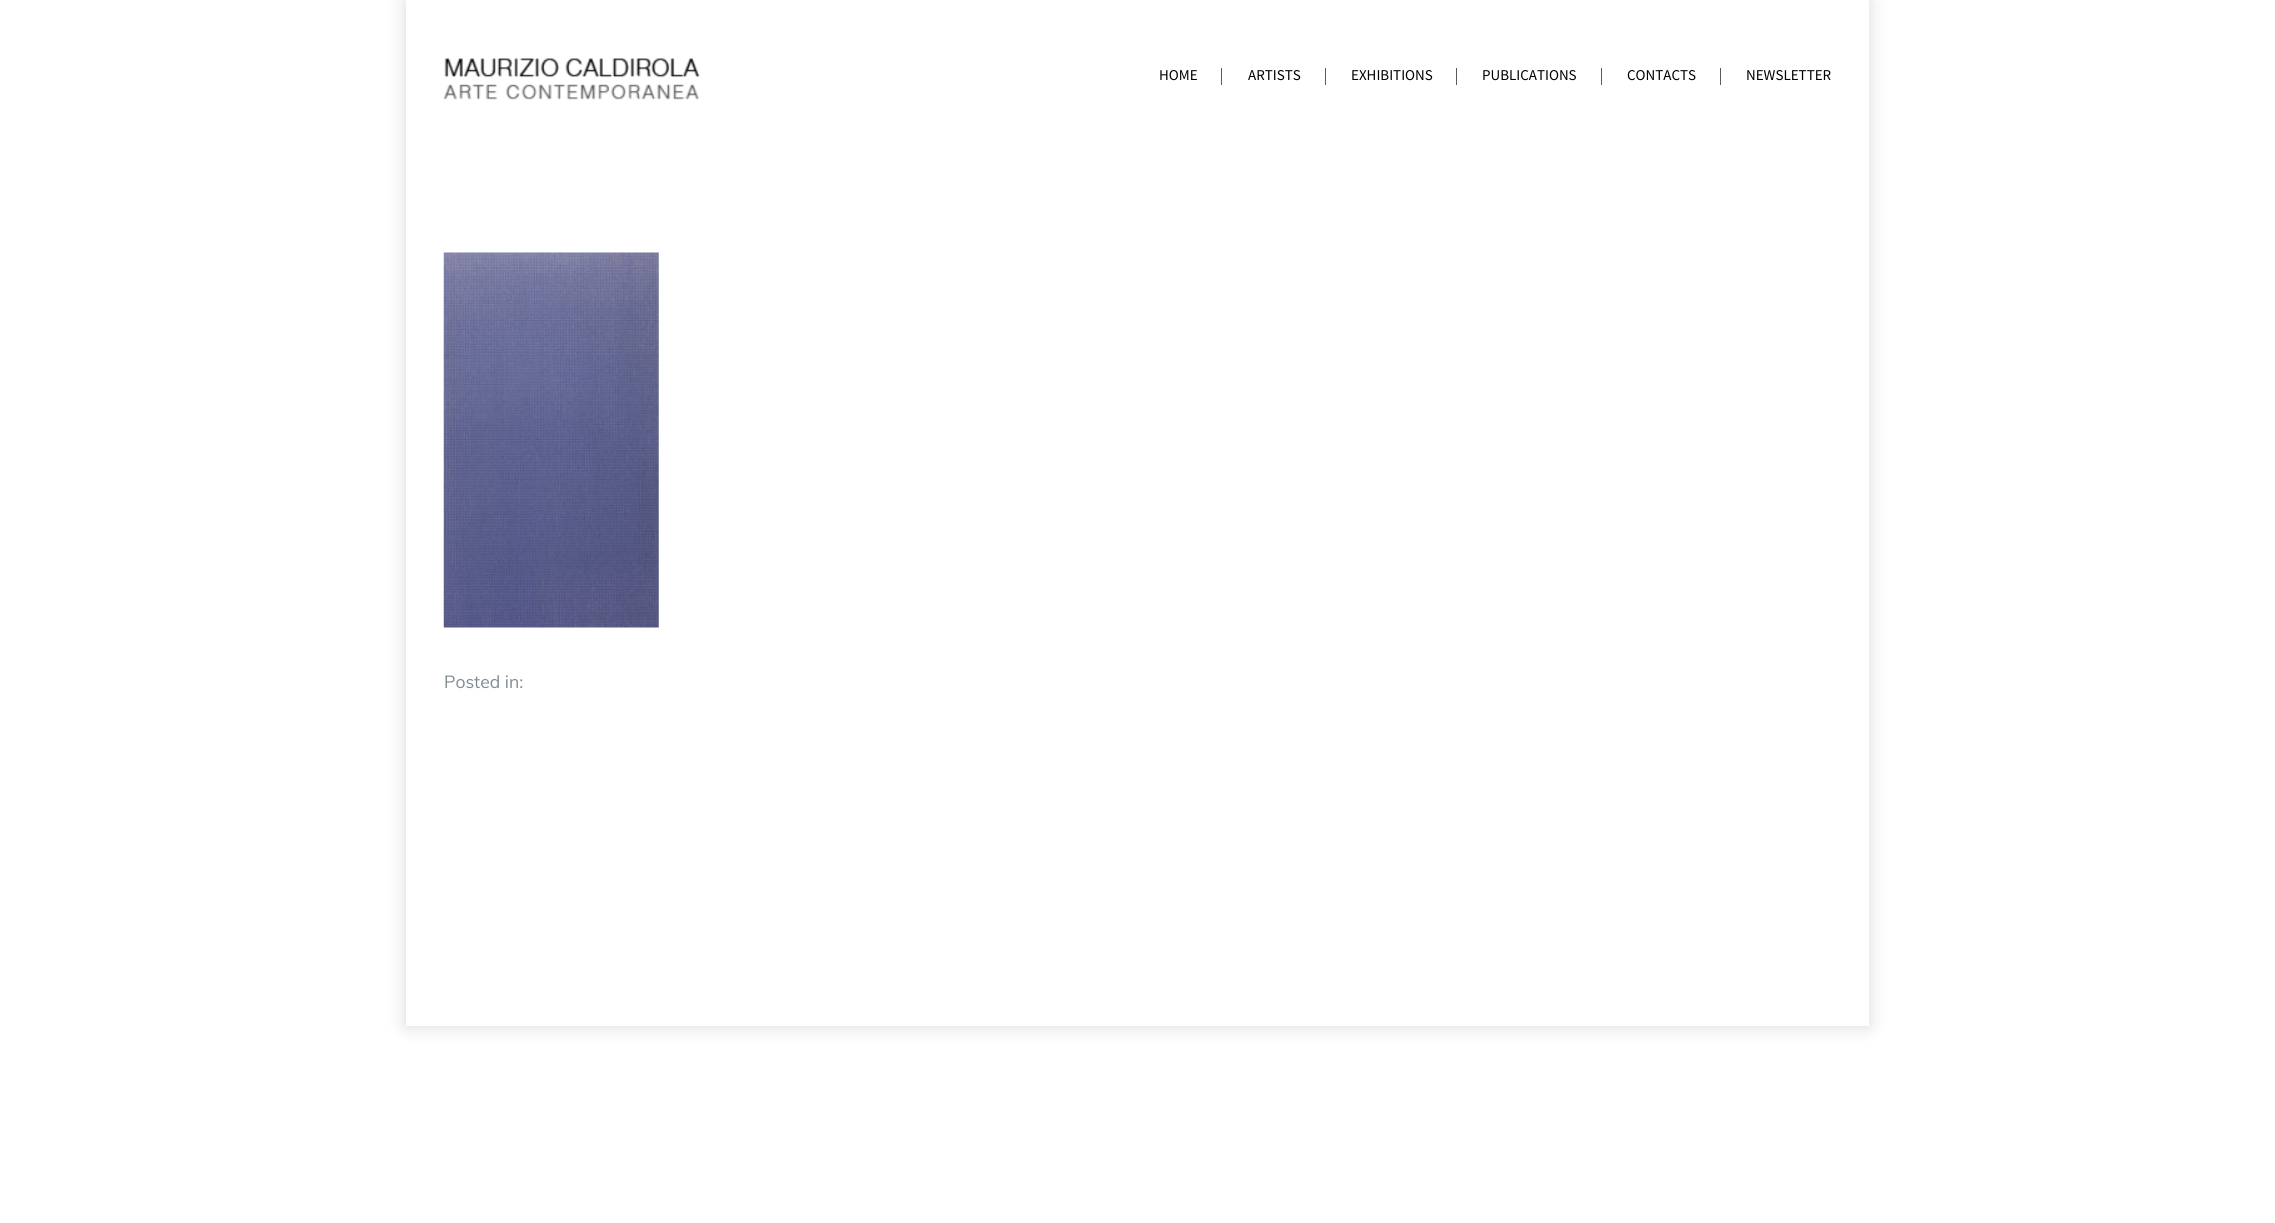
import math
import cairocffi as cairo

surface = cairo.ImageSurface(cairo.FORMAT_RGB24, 2275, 1223)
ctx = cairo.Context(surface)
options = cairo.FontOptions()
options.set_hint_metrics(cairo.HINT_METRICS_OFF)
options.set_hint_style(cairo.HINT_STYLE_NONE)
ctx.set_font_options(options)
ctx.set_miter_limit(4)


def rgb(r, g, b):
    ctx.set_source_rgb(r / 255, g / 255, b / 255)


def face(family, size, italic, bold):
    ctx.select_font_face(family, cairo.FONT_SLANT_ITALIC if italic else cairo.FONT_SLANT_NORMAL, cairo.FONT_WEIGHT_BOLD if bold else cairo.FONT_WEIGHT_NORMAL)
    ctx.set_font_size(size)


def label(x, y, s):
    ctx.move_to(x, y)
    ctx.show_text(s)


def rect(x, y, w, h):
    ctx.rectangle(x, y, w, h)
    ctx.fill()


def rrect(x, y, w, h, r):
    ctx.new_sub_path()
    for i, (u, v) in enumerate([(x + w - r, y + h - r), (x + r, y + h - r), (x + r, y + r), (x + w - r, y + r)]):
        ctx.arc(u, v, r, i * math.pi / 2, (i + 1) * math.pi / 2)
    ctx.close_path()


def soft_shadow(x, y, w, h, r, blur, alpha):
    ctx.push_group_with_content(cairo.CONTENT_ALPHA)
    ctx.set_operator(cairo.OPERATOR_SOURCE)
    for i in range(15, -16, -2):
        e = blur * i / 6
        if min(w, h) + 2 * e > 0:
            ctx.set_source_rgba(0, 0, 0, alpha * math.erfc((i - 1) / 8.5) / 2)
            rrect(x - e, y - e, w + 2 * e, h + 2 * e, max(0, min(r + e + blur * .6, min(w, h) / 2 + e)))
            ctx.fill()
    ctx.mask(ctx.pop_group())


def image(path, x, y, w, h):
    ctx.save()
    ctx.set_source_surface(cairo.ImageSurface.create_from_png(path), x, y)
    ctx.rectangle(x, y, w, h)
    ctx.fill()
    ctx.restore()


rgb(255, 255, 255)
ctx.paint()
rgb(0, 0, 0)
soft_shadow(406, 0, 1463, 1026, 0, 9.5, 0.15)
rgb(255, 255, 255)
rect(406, 0, 1463, 1026)
image('image0.png', 443, 58, 257, 42)
face('Source Sans Pro', 15, 0, 0)
rgb(0, 0, 0)
label(1159, 80, 'HOME')
rgb(91, 91, 91)
rect(1221, 68, 1, 17)
rgb(0, 0, 0)
label(1248, 80, 'ARTISTS')
rgb(91, 91, 91)
rect(1325, 68, 1, 17)
rgb(0, 0, 0)
label(1351, 80, 'EXHIBITIONS')
rgb(91, 91, 91)
rect(1456, 68, 1, 17)
rgb(0, 0, 0)
label(1482, 80, 'PUBLICATIONS')
rgb(91, 91, 91)
rect(1601, 68, 1, 17)
rgb(0, 0, 0)
label(1627, 80, 'CONTACTS')
rgb(91, 91, 91)
rect(1720, 68, 1, 17)
rgb(0, 0, 0)
label(1746, 80, 'NEWSLETTER')
image('image1.png', 443, 252, 216, 376)
face('Muli', 17.5, 0, 0)
rgb(129, 139, 146)
label(444, 688, 'Posted in:')
surface.write_to_png('render.png')
